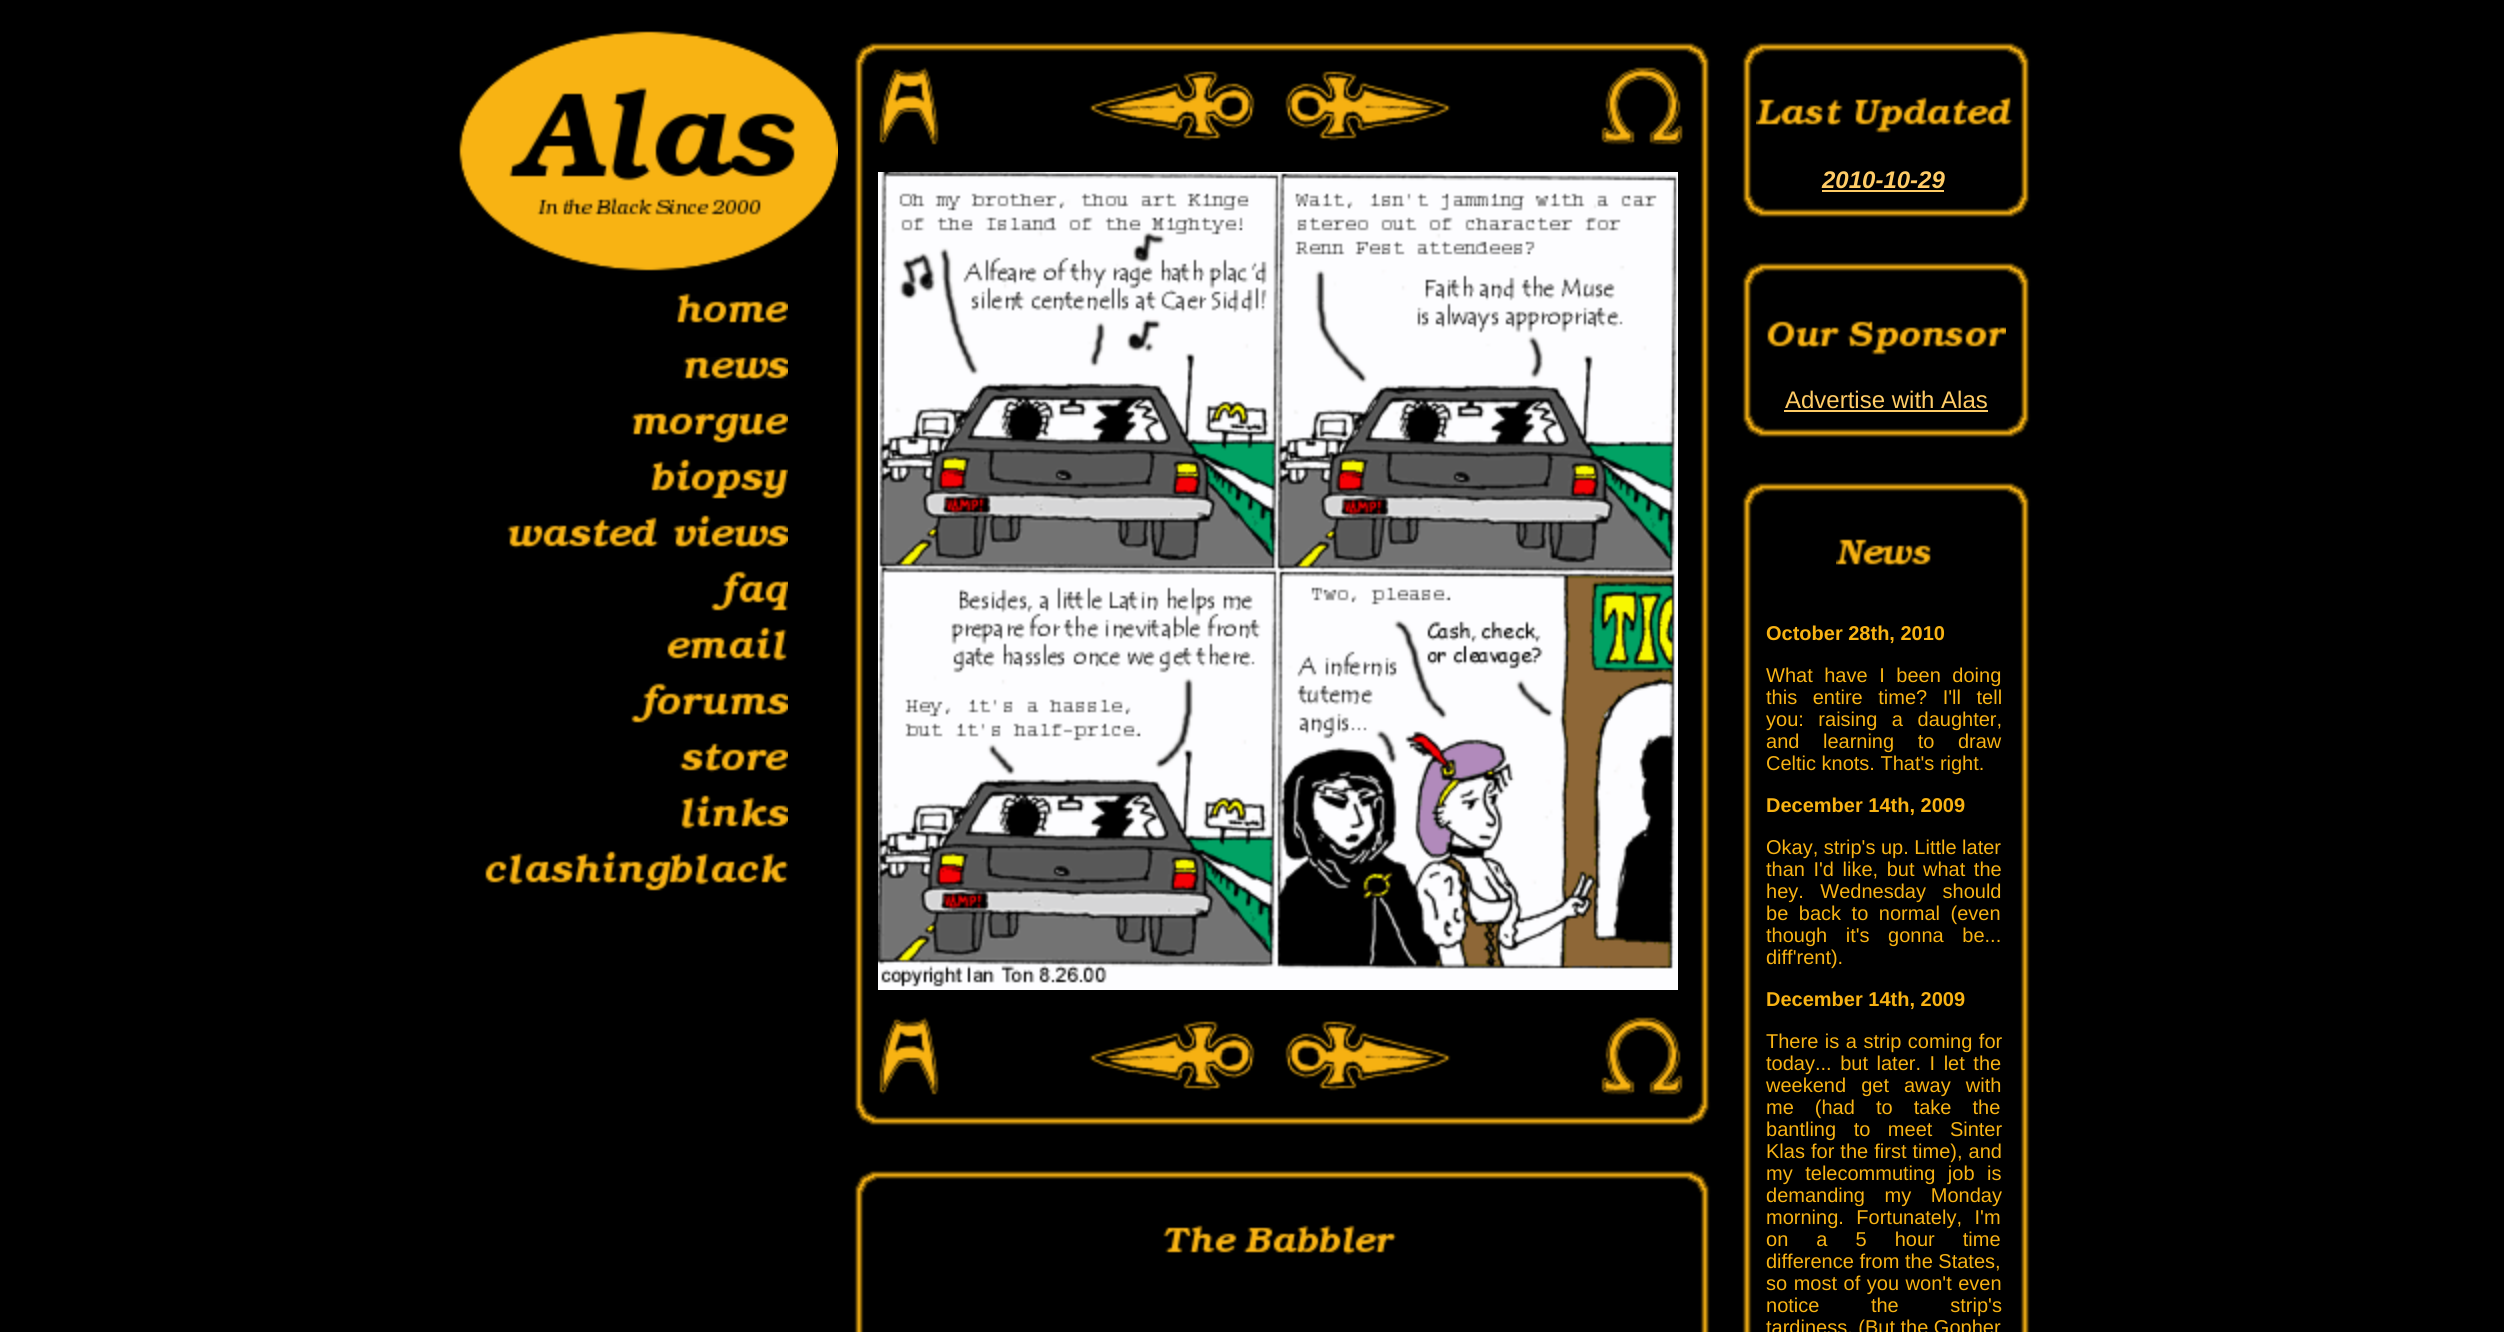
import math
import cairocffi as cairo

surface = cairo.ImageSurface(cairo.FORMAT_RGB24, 2504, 1332)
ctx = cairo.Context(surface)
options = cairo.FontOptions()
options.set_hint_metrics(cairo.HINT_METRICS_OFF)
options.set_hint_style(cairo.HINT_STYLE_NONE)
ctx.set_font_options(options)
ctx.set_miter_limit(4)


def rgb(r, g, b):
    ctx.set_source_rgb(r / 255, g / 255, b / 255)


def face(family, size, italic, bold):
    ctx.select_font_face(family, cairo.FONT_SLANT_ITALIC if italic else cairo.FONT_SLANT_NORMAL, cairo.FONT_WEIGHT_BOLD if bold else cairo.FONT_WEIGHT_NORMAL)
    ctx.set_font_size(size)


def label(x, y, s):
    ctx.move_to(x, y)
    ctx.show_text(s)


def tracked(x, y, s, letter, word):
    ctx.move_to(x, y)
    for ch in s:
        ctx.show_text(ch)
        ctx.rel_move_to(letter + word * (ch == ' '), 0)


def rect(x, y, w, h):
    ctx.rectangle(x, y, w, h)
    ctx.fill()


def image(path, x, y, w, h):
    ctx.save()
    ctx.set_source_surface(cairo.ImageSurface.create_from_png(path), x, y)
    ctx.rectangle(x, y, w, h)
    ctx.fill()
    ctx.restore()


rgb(0, 0, 0)
ctx.paint()
image('image0.png', 459, 31, 379, 240)
image('image1.png', 676, 293, 112, 30)
image('image2.png', 683, 357, 105, 24)
image('image3.png', 631, 413, 157, 30)
image('image4.png', 651, 459, 137, 40)
image('image5.png', 507, 515, 281, 34)
image('image6.png', 711, 571, 77, 40)
image('image7.png', 667, 627, 120, 34)
image('image8.png', 631, 683, 157, 40)
image('image9.png', 679, 743, 109, 30)
image('image10.png', 681, 795, 107, 34)
image('image11.png', 485, 851, 303, 40)
image('image12.png', 877, 42, 810, 10)
image('image13.png', 838, 42, 39, 24)
image('image14.png', 1687, 42, 39, 24)
image('image15.png', 854, 66, 10, 1036)
image('image15.png', 1700, 66, 10, 1036)
image('image16.png', 879, 67, 60, 78)
image('image17.png', 1089, 71, 166, 70)
image('image18.png', 1285, 71, 166, 70)
image('image19.png', 1601, 67, 83, 78)
image('image20.png', 878, 172, 800, 818)
image('image16.png', 879, 1017, 60, 78)
image('image17.png', 1089, 1021, 166, 70)
image('image18.png', 1285, 1021, 166, 70)
image('image19.png', 1601, 1017, 83, 78)
image('image12.png', 877, 1116, 810, 10)
image('image21.png', 838, 1102, 39, 24)
image('image22.png', 1687, 1102, 39, 24)
image('image12.png', 877, 1170, 810, 10)
image('image13.png', 838, 1170, 39, 24)
image('image14.png', 1687, 1170, 39, 24)
image('image23.png', 854, 1194, 10, 138)
image('image23.png', 1700, 1194, 10, 138)
image('image24.png', 1163, 1225, 234, 30)
image('image25.png', 1765, 42, 242, 10)
image('image13.png', 1726, 42, 39, 24)
image('image14.png', 2007, 42, 39, 24)
image('image26.png', 1742, 66, 10, 128)
image('image26.png', 2020, 66, 10, 128)
image('image27.png', 1756, 97, 257, 36)
face('Liberation Sans', 24, 1, 1)
rgb(255, 204, 102)
label(1822, 188, '2010-10-29')
rect(1822, 190, 122, 2)
image('image25.png', 1765, 208, 242, 10)
image('image21.png', 1726, 194, 39, 24)
image('image22.png', 2007, 194, 39, 24)
image('image25.png', 1765, 262, 242, 10)
image('image13.png', 1726, 262, 39, 24)
image('image14.png', 2007, 262, 39, 24)
image('image26.png', 1742, 286, 10, 128)
image('image26.png', 2020, 286, 10, 128)
image('image28.png', 1767, 321, 239, 34)
face('Liberation Sans', 24, 0, 0)
label(1785, 408, 'Advertise with Alas')
rect(1784, 410, 204, 2)
image('image25.png', 1765, 428, 242, 10)
image('image21.png', 1726, 414, 39, 24)
image('image22.png', 2007, 414, 39, 24)
image('image25.png', 1765, 482, 242, 10)
image('image13.png', 1726, 482, 39, 24)
image('image14.png', 2007, 482, 39, 24)
image('image29.png', 1742, 506, 10, 826)
image('image29.png', 2020, 506, 10, 826)
image('image30.png', 1836, 539, 95, 28)
face('Liberation Sans', 20, 0, 1)
rgb(248, 179, 19)
label(1766, 640, 'October 28th, 2010')
face('Liberation Sans', 20, 0, 0)
tracked(1766, 682, 'What have I been doing', 0, 6)
tracked(1766, 704, 'this entire time? I\'ll tell', 0, 10)
tracked(1766, 726, 'you: raising a daughter,', 0, 9)
tracked(1766, 748, 'and learning to draw', 0, 18)
label(1766, 770, 'Celtic knots. That\'s right.')
face('Liberation Sans', 20, 0, 1)
label(1766, 812, 'December 14th, 2009')
face('Liberation Sans', 20, 0, 0)
label(1766, 854, 'Okay, strip\'s up. Little later')
tracked(1766, 876, 'than I\'d like, but what the', 0, 3)
tracked(1766, 898, 'hey. Wednesday should', 0, 11)
tracked(1766, 920, 'be back to normal (even', 0, 5)
tracked(1766, 942, 'though it\'s gonna be...', 0, 13)
label(1766, 964, 'diff\'rent).')
face('Liberation Sans', 20, 0, 1)
label(1766, 1006, 'December 14th, 2009')
face('Liberation Sans', 20, 0, 0)
tracked(1766, 1048, 'There is a strip coming for', 0, 1)
tracked(1766, 1070, 'today... but later. I let the', 0, 3)
tracked(1766, 1092, 'weekend get away with', 0, 9.5)
tracked(1766, 1114, 'me (had to take the', 0, 15.5)
tracked(1766, 1136, 'bantling to meet Sinter', 0, 12)
tracked(1766, 1158, 'Klas for the first time), and', 0, 0.5)
tracked(1766, 1180, 'my telecommuting job is', 0, 7)
tracked(1766, 1202, 'demanding my Monday', 0, 14)
tracked(1766, 1224, 'morning. Fortunately, I\'m', 0, 7)
tracked(1766, 1246, 'on a 5 hour time', 0, 22.5)
label(1766, 1268, 'difference from the States,')
tracked(1766, 1290, 'so most of you won\'t even', 0, 1)
tracked(1766, 1312, 'notice the strip\'s', 0, 46)
label(1766, 1334, 'tardiness. (But the Gopher')
surface.write_to_png('render.png')
